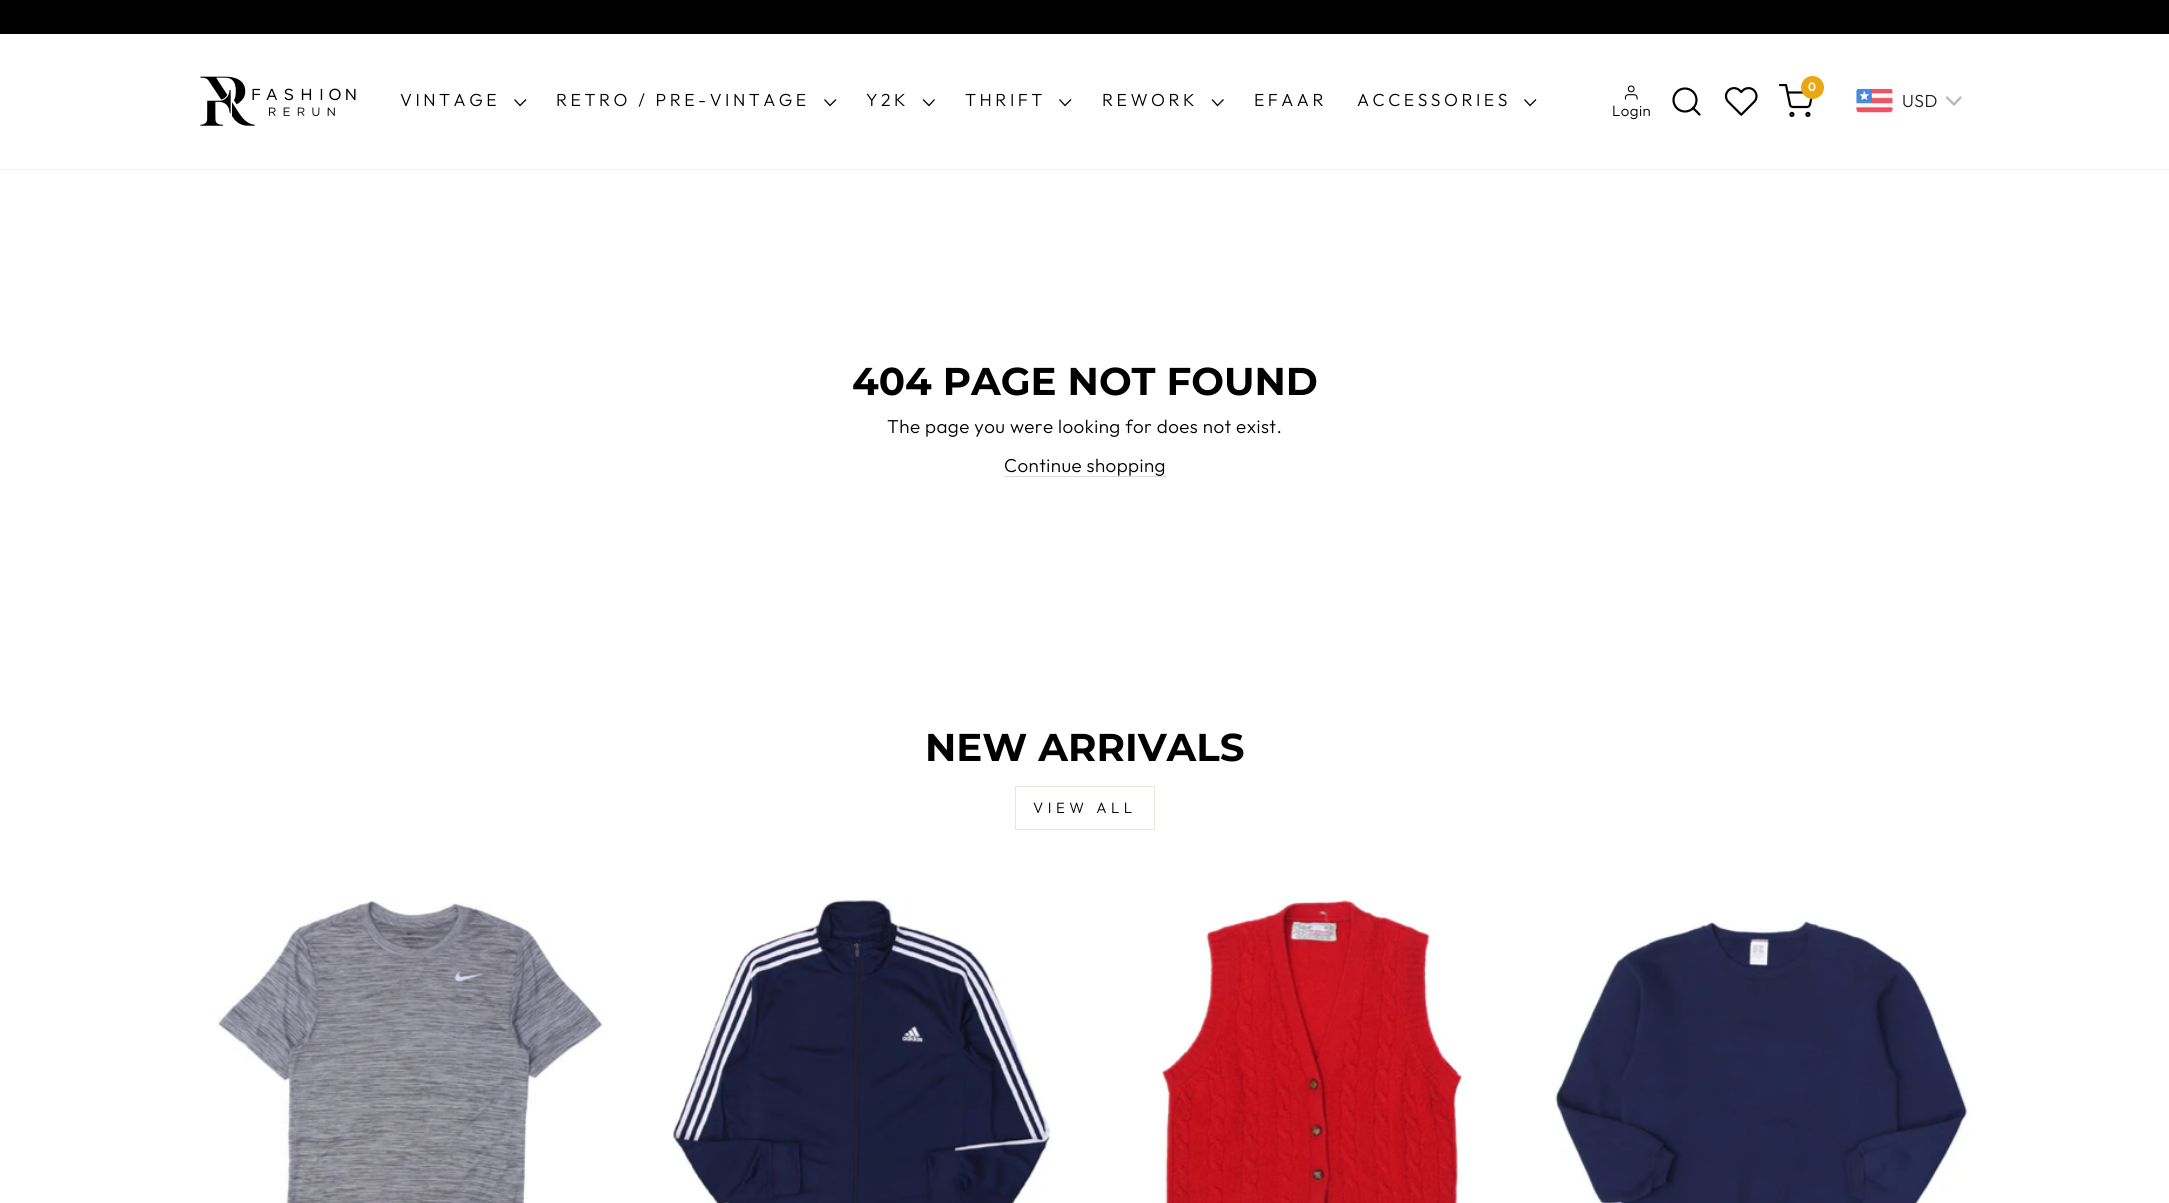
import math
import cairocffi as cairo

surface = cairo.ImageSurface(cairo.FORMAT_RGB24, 2169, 1203)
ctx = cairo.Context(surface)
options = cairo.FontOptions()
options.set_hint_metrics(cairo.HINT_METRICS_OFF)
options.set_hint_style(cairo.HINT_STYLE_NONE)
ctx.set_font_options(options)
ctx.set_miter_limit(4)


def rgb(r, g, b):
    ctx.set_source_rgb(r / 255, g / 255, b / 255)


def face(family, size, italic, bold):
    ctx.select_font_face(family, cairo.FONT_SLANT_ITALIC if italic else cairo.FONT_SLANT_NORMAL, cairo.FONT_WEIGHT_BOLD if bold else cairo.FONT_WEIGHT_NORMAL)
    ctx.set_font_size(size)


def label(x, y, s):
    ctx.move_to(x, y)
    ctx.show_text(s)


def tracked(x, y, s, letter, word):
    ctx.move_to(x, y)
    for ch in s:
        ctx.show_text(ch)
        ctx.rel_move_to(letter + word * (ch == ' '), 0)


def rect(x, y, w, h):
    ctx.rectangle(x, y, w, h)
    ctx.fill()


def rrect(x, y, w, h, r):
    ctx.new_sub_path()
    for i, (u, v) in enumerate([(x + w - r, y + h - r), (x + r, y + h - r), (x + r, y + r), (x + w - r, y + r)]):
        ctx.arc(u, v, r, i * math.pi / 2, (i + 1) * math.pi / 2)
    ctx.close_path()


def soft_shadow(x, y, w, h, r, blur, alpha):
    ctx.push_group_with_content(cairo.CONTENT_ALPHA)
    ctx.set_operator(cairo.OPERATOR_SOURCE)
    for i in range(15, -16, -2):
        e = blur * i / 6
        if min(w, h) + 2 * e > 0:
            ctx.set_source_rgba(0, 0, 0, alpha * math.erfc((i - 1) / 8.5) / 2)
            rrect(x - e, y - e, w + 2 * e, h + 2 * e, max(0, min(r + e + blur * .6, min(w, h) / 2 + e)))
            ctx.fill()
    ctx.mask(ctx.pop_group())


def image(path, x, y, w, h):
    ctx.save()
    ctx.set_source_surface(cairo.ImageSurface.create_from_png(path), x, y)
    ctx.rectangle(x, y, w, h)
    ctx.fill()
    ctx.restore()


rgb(255, 255, 255)
ctx.paint()
rgb(0, 0, 0)
rect(0, 0, 2169, 34)
rgb(0, 0, 0)
soft_shadow(0, 34, 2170, 135, 0, 0.5, 0.2)
rgb(255, 255, 255)
rect(0, 34, 2169, 135)
image('image0.png', 200, 76, 156, 50)
face('Outfit Light', 17.5, 0, 0)
rgb(0, 0, 0)
tracked(400, 106, 'VINTAGE', 3.5, 0)
ctx.new_path()
ctx.move_to(514.5, 99.5)
ctx.line_to(520, 105.5)
ctx.line_to(526, 99.5)
ctx.set_line_width(1.3)
ctx.stroke()
tracked(556, 106, 'RETRO / PRE-VINTAGE', 3.5, 0)
ctx.new_path()
ctx.move_to(824.5, 99.5)
ctx.line_to(830, 105.5)
ctx.line_to(836, 99.5)
ctx.stroke()
tracked(866, 106, 'Y2K', 3.5, 0)
ctx.new_path()
ctx.move_to(923, 99.5)
ctx.line_to(929, 105.5)
ctx.line_to(934.5, 99.5)
ctx.stroke()
tracked(965, 106, 'THRIFT', 3.5, 0)
ctx.new_path()
ctx.move_to(1059.5, 99.5)
ctx.line_to(1065, 105.5)
ctx.line_to(1071, 99.5)
ctx.stroke()
tracked(1102, 106, 'REWORK', 3.5, 0)
ctx.new_path()
ctx.move_to(1212, 99.5)
ctx.line_to(1217.5, 105.5)
ctx.line_to(1223.5, 99.5)
ctx.stroke()
tracked(1254, 106, 'EFAAR', 3.5, 0)
tracked(1357, 106, 'ACCESSORIES', 3.5, 0)
ctx.new_path()
ctx.move_to(1524.5, 99.5)
ctx.line_to(1530, 105.5)
ctx.line_to(1536, 99.5)
ctx.stroke()
ctx.arc(1685, 100, 11.5, 0, 2 * math.pi)
ctx.set_line_width(2.2)
ctx.stroke()
ctx.new_path()
ctx.move_to(1699.5, 114.5)
ctx.line_to(1693, 108)
ctx.set_line_cap(cairo.LINE_CAP_ROUND)
ctx.set_line_join(cairo.LINE_JOIN_ROUND)
ctx.stroke()
image('image1.png', 1724, 87, 34, 29)
ctx.save()
ctx.rectangle(1779, 84, 35, 35)
ctx.clip()
ctx.new_path()
ctx.move_to(1780, 85)
ctx.line_to(1786, 85)
ctx.line_to(1790, 104.5)
ctx.curve_to(1790, 106, 1791.5, 107, 1793, 107)
ctx.line_to(1807, 107)
ctx.curve_to(1808.5, 107, 1809.5, 106, 1810, 104.5)
ctx.line_to(1812.5, 92.5)
ctx.line_to(1787.5, 92.5)
ctx.stroke()
ctx.restore()
rgb(232, 167, 19)
ctx.arc(1812.5, 87.5, 11.5, 0, 2 * math.pi)
ctx.fill()
face('Outfit SemiBold', 12, 0, 0)
rgb(255, 255, 255)
tracked(1808, 91, '0', 0.45, 0)
ctx.new_path()
ctx.arc(1791.9, 114.4, 1.5, 0, 2 * math.pi)
rgb(0, 0, 0)
ctx.set_line_cap(cairo.LINE_CAP_BUTT)
ctx.set_line_join(cairo.LINE_JOIN_MITER)
ctx.stroke()
ctx.arc(1807.9, 114.4, 1.5, 0, 2 * math.pi)
ctx.stroke()
image('image2.png', 1856, 88, 37, 25)
face('Outfit Light', 17.5, 0, 0)
rgb(30, 30, 30)
tracked(1902, 107, 'USD', 0.45, 0)
ctx.new_path()
ctx.move_to(1947, 97.5)
ctx.line_to(1954, 104.5)
ctx.line_to(1960.5, 97.5)
rgb(183, 183, 183)
ctx.set_line_width(2.3)
ctx.set_line_cap(cairo.LINE_CAP_ROUND)
ctx.set_line_join(cairo.LINE_JOIN_ROUND)
ctx.stroke()
image('image3.png', 1624, 85, 14, 15)
face('Outfit Light', 15, 0, 0)
rgb(0, 0, 0)
tracked(1612, 116, 'Login', 0.45, 0)
face('Montserrat', 38.75, 0, 1)
label(852, 395, '404 PAGE NOT FOUND')
face('Outfit Light', 18.75, 0, 0)
tracked(887, 433, 'The page you were looking for does not exist.', 0.45, 0)
tracked(1004, 472, 'Continue shopping', 0.45, 0)
rgb(217, 217, 217)
rect(1004, 476, 162, 1)
face('Montserrat', 38.75, 0, 1)
rgb(0, 0, 0)
label(925, 761, 'NEW ARRIVALS')
ctx.rectangle(1015.5, 786.5, 139, 43)
rgb(232, 232, 225)
ctx.set_line_width(1)
ctx.set_line_cap(cairo.LINE_CAP_BUTT)
ctx.set_line_join(cairo.LINE_JOIN_MITER)
ctx.stroke()
face('Outfit Light', 15, 0, 0)
rgb(0, 0, 0)
tracked(1033, 813, 'VIEW ALL', 4.5, 0)
image('image4.png', 217, 900, 386, 303)
image('image5.png', 673, 898, 379, 305)
image('image6.png', 1160, 897, 306, 306)
image('image7.png', 1552, 920, 418, 283)
surface.write_to_png('render.png')
